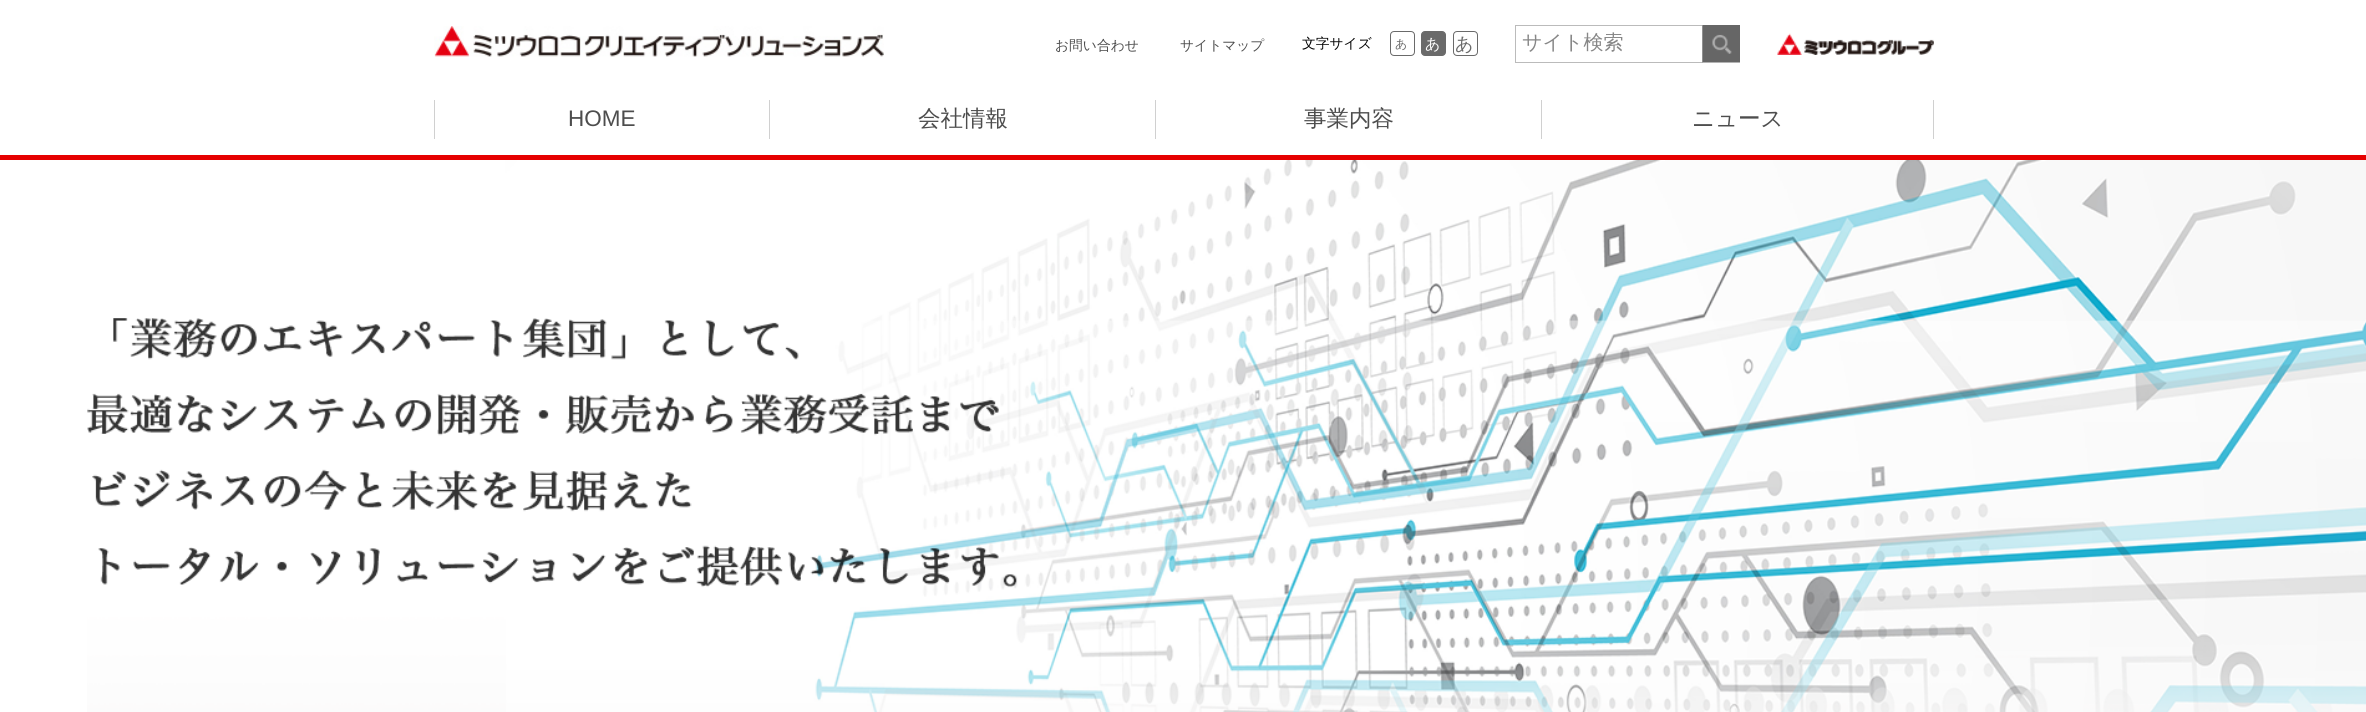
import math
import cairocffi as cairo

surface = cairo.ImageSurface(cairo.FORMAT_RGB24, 2366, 712)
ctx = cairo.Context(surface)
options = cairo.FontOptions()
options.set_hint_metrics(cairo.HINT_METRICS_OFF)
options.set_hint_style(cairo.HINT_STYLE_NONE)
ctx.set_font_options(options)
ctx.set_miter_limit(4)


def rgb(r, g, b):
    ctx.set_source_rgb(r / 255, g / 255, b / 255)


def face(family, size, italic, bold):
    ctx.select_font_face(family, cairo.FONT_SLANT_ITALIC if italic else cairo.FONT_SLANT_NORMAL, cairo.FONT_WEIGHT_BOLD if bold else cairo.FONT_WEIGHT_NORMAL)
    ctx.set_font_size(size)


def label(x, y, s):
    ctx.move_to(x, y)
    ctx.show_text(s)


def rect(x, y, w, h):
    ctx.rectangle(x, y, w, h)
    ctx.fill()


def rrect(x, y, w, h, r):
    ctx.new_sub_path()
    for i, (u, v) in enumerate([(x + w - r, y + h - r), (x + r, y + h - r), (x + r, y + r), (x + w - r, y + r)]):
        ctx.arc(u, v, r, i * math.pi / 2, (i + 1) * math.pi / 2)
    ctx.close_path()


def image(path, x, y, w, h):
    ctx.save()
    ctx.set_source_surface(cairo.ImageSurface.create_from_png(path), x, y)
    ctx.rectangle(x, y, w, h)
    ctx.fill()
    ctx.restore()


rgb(255, 255, 255)
ctx.paint()
rgb(230, 0, 0)
rect(0, 155, 2366, 5)
image('image0.png', 434, 26, 450, 31)
face('WenQuanYi Zen Hei Medium', 13.75, 0, 0)
rgb(77, 77, 77)
label(1055, 50, 'お問い合わせ')
label(1180, 50, 'サイトマップ')
rgb(0, 0, 0)
label(1302, 48, '文字サイズ')
rrect(1390.5, 31.5, 24, 24, 3.5)
rgb(106, 106, 106)
ctx.set_line_width(1)
ctx.stroke()
face('WenQuanYi Zen Hei Medium', 12, 0, 0)
label(1395, 48, 'あ')
rrect(1421.5, 31.5, 24, 24, 3.5)
ctx.fill_preserve()
ctx.stroke()
face('WenQuanYi Zen Hei Medium', 15, 0, 0)
rgb(255, 255, 255)
label(1425, 49, 'あ')
rrect(1453.5, 31.5, 24, 24, 3.5)
rgb(106, 106, 106)
ctx.stroke()
face('WenQuanYi Zen Hei Medium', 18, 0, 0)
label(1455, 50, 'あ')
ctx.rectangle(1515.5, 25.5, 187, 37)
rgb(187, 187, 187)
ctx.stroke()
face('WenQuanYi Zen Hei Medium', 20, 0, 0)
rgb(135, 135, 135)
label(1522, 49, 'サイト検索')
image('image1.png', 1702, 25, 38, 38)
image('image2.png', 1777, 33, 157, 22)
rgb(208, 208, 208)
rect(769, 100, 1, 39)
rect(434, 100, 1, 39)
face('Liberation Sans', 22.5, 0, 0)
rgb(77, 77, 77)
label(568, 126, 'HOME')
rgb(208, 208, 208)
rect(1155, 100, 1, 39)
face('WenQuanYi Zen Hei Medium', 22.5, 0, 0)
rgb(77, 77, 77)
label(918, 126, '会社情報')
rgb(208, 208, 208)
rect(1541, 100, 1, 39)
rgb(77, 77, 77)
label(1304, 126, '事業内容')
rgb(208, 208, 208)
rect(1933, 100, 1, 39)
rgb(77, 77, 77)
label(1692, 126, 'ニュース')
image('image3.png', 87, 160, 2279, 552)
surface.write_to_png('render.png')
